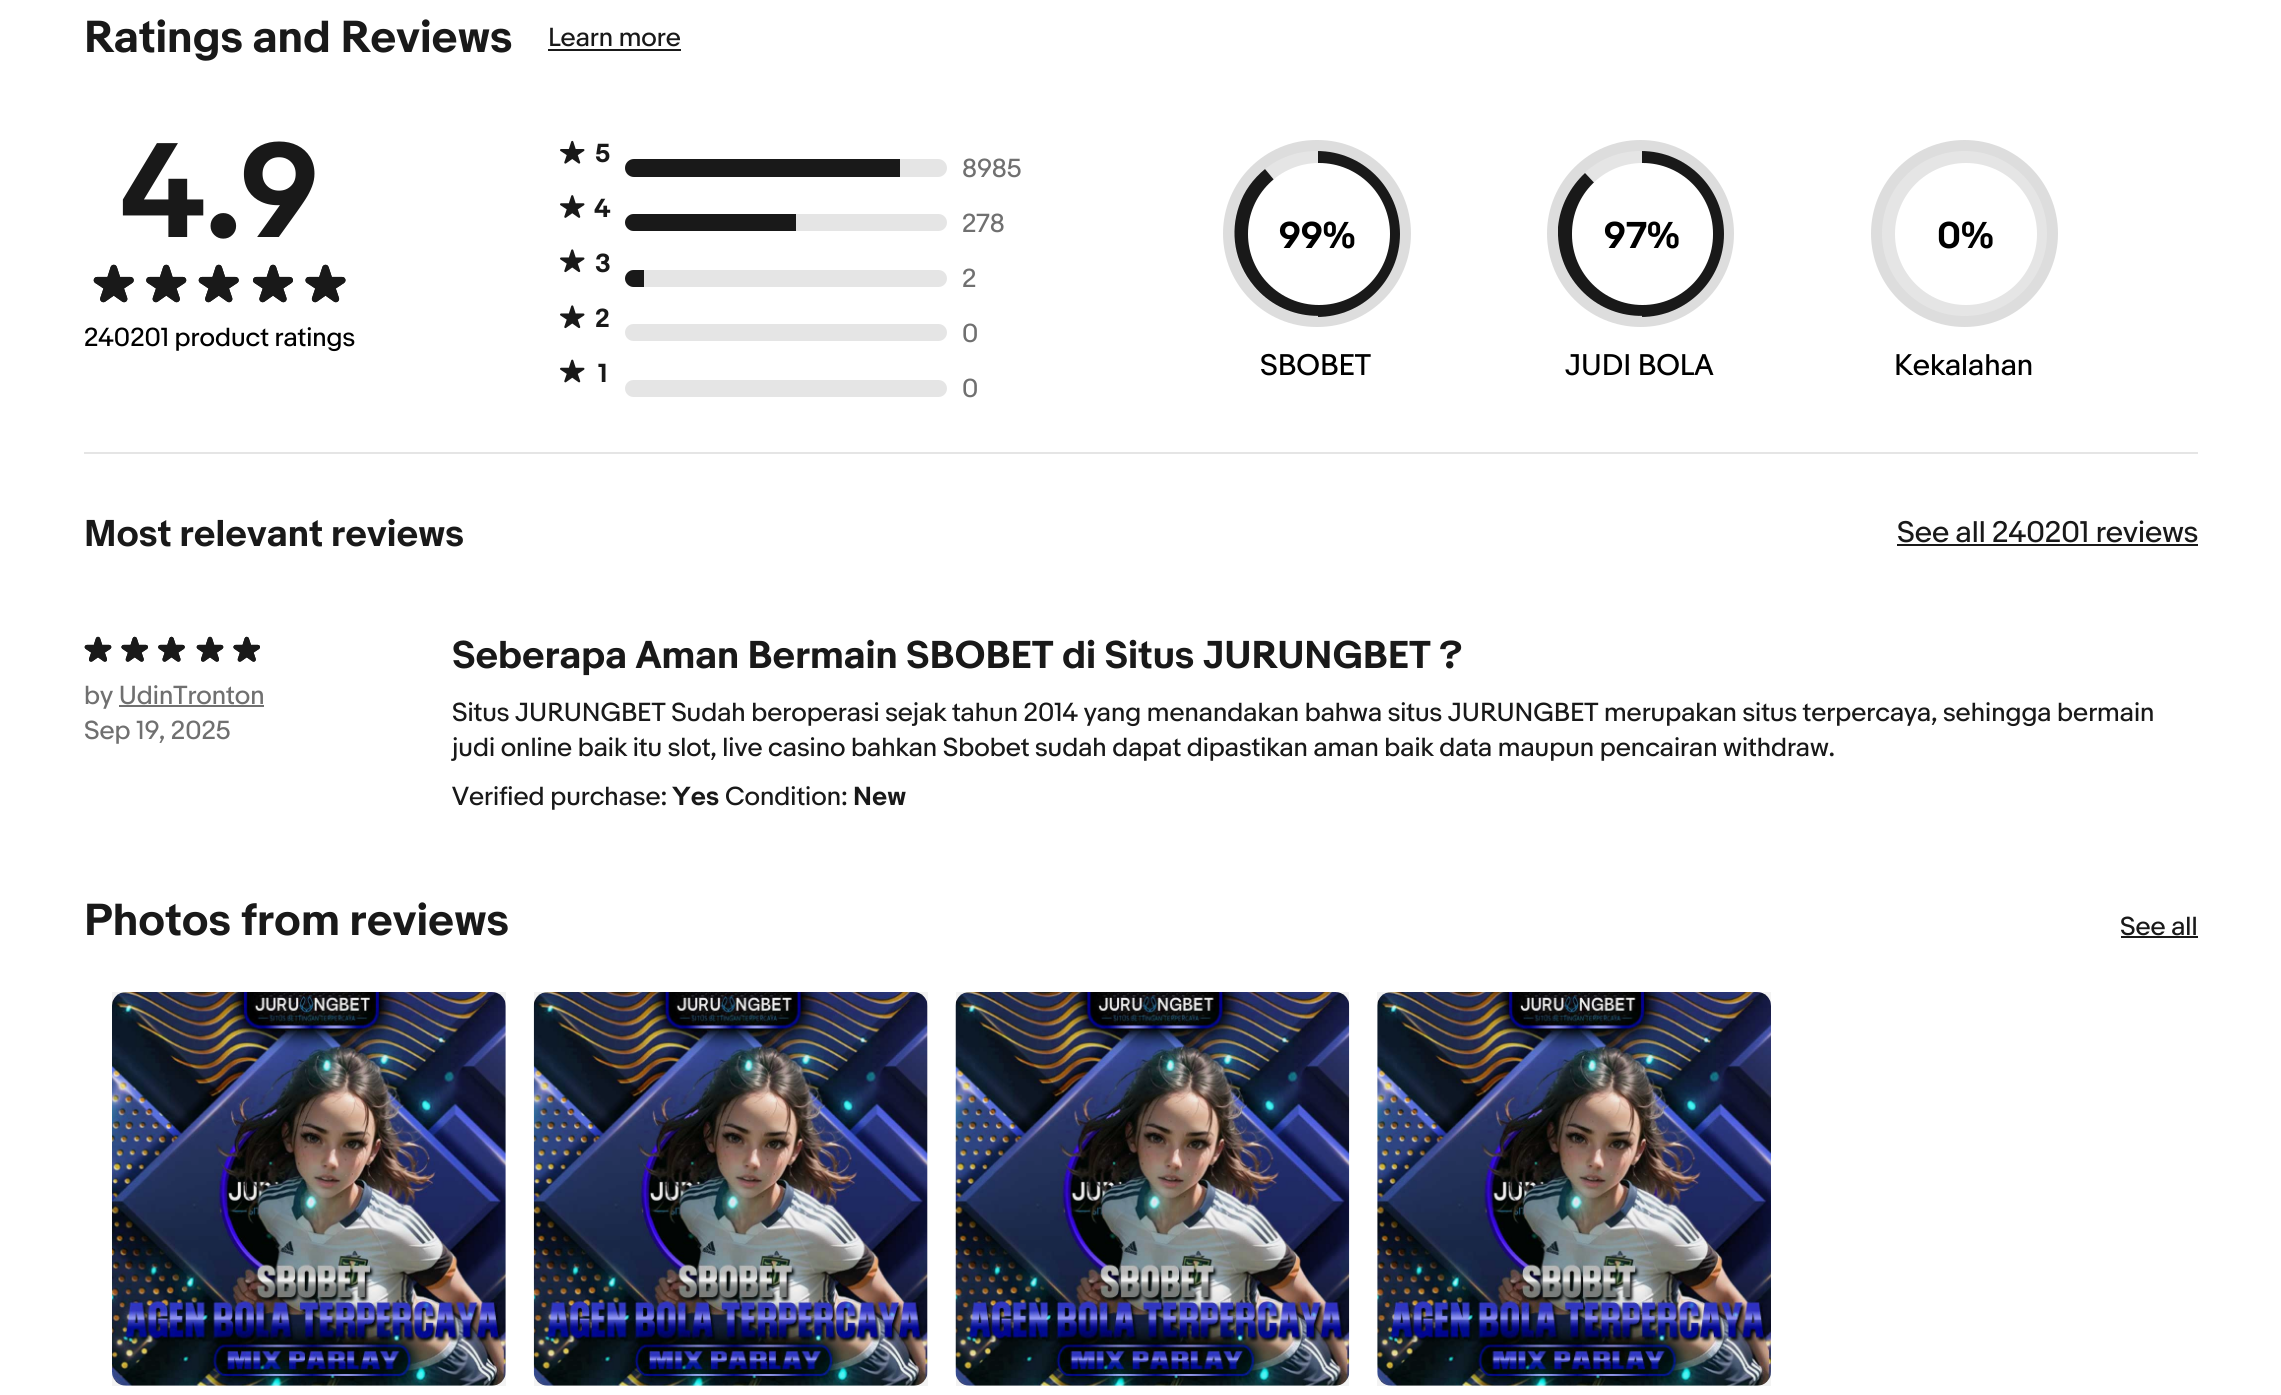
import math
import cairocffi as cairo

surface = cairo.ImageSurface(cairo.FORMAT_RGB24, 2281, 1395)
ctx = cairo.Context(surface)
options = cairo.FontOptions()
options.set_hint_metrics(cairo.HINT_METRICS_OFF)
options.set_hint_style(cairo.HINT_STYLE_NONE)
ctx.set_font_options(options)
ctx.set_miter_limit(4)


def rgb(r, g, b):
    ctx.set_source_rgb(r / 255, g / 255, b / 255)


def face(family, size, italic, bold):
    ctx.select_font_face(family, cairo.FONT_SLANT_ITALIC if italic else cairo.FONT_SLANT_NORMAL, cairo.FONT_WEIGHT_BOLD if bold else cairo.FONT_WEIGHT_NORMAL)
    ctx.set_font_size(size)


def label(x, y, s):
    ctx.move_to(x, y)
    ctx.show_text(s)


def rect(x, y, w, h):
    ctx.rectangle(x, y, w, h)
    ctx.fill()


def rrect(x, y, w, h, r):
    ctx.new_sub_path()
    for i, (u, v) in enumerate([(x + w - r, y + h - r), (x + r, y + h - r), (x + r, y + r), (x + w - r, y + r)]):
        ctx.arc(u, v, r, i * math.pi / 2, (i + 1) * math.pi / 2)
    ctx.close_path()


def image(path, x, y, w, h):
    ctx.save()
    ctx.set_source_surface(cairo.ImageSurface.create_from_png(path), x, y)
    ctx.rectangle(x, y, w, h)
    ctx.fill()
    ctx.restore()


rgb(255, 255, 255)
ctx.paint()
face('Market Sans', 42, 0, 1)
rgb(25, 25, 25)
label(84, 52, 'Ratings and Reviews')
face('Market Sans', 24.5, 0, 0)
label(548, 46, 'Learn more')
rect(548, 49, 133, 2)
face('Market Sans', 126, 0, 1)
label(120, 237, '4.9')
image('image0.png', 93, 264, 41, 39)
image('image1.png', 146, 264, 41, 39)
image('image0.png', 198, 264, 41, 39)
image('image2.png', 252, 264, 41, 39)
image('image3.png', 305, 264, 41, 39)
face('Market Sans', 24.5, 0, 0)
rgb(0, 0, 0)
label(84, 346, '240201 product ratings')
image('image4.png', 560, 140, 25, 24)
face('Market Sans', 24.5, 0, 1)
rgb(25, 25, 25)
label(595, 162, '5')
rgb(229, 229, 229)
rrect(625, 159, 322, 18, 9)
ctx.fill()
rgb(25, 25, 25)
ctx.new_path()
ctx.move_to(634, 159)
ctx.line_to(900, 159)
ctx.line_to(900, 177)
ctx.line_to(634, 177)
ctx.curve_to(629, 177, 625, 173, 625, 168)
ctx.curve_to(625, 163, 629, 159, 634, 159)
ctx.close_path()
ctx.fill()
face('Market Sans', 24.5, 0, 0)
rgb(112, 112, 112)
label(962, 177, '8985')
image('image5.png', 560, 195, 25, 23)
face('Market Sans', 24.5, 0, 1)
rgb(25, 25, 25)
label(594, 217, '4')
rgb(229, 229, 229)
rrect(625, 214, 322, 17, 8.5)
ctx.fill()
rgb(25, 25, 25)
ctx.new_path()
ctx.move_to(633.5, 214)
ctx.line_to(796, 214)
ctx.line_to(796, 231)
ctx.line_to(633.5, 231)
ctx.curve_to(629, 231, 625, 227, 625, 222.5)
ctx.curve_to(625, 218, 629, 214, 633.5, 214)
ctx.close_path()
ctx.fill()
face('Market Sans', 24.5, 0, 0)
rgb(112, 112, 112)
label(962, 232, '278')
image('image6.png', 560, 249, 25, 24)
face('Market Sans', 24.5, 0, 1)
rgb(25, 25, 25)
label(595, 272, '3')
rgb(229, 229, 229)
rrect(625, 270, 322, 17, 8.5)
ctx.fill()
rgb(25, 25, 25)
ctx.new_path()
ctx.move_to(633.5, 270)
ctx.line_to(644, 270)
ctx.line_to(644, 287)
ctx.line_to(633.5, 287)
ctx.curve_to(629, 287, 625, 283, 625, 278.5)
ctx.curve_to(625, 274, 629, 270, 633.5, 270)
ctx.close_path()
ctx.fill()
face('Market Sans', 24.5, 0, 0)
rgb(112, 112, 112)
label(962, 287, '2')
image('image6.png', 560, 305, 25, 24)
face('Market Sans', 24.5, 0, 1)
rgb(25, 25, 25)
label(595, 327, '2')
rgb(229, 229, 229)
rrect(625, 324, 322, 17, 8.5)
ctx.fill()
face('Market Sans', 24.5, 0, 0)
rgb(112, 112, 112)
label(962, 342, '0')
image('image7.png', 560, 359, 25, 24)
face('Market Sans', 24.5, 0, 1)
rgb(25, 25, 25)
label(598, 382, '1')
rgb(229, 229, 229)
rrect(625, 380, 322, 17, 8.5)
ctx.fill()
face('Market Sans', 24.5, 0, 0)
rgb(112, 112, 112)
label(962, 397, '0')
rgb(229, 229, 229)
rrect(1228.5, 145.5, 177, 176, 88)
ctx.fill_preserve()
rgb(221, 221, 221)
ctx.set_line_width(11)
ctx.stroke()
ctx.save()
rrect(1234, 151, 166, 166, 83)
ctx.clip()
rgb(25, 25, 25)
ctx.new_path()
ctx.move_to(1318, 151)
ctx.curve_to(1363.5, 151, 1400, 187.5, 1400, 233)
ctx.line_to(1400, 235)
ctx.curve_to(1400, 280.5, 1363.5, 317, 1318, 317)
ctx.close_path()
ctx.fill()
ctx.restore()
ctx.save()
ctx.rectangle(1234, 151, 84, 166)
ctx.clip()
rgb(25, 25, 25)
ctx.new_path()
ctx.move_to(1239, 206)
ctx.curve_to(1244, 191, 1253, 179, 1265, 169)
ctx.line_to(1371, 297)
ctx.curve_to(1335, 326, 1283, 321, 1254, 286)
ctx.curve_to(1234, 262, 1230, 232, 1239, 206)
ctx.close_path()
ctx.fill()
ctx.restore()
rgb(255, 255, 255)
ctx.arc(1319, 234, 71, 0, 2 * math.pi)
ctx.fill()
face('Market Sans', 35, 0, 1)
rgb(0, 0, 0)
label(1279, 248, '99%')
face('Market Sans', 28, 0, 0)
label(1260, 375, 'SBOBET')
rgb(229, 229, 229)
ctx.new_path()
ctx.arc(1640.5, 233.5, 88, 0, 2 * math.pi)
ctx.fill_preserve()
rgb(221, 221, 221)
ctx.stroke()
ctx.save()
rrect(1558, 151, 166, 166, 83)
ctx.clip()
rgb(25, 25, 25)
ctx.new_path()
ctx.move_to(1642, 151)
ctx.curve_to(1687.5, 151, 1724, 187.5, 1724, 233)
ctx.line_to(1724, 235)
ctx.curve_to(1724, 280.5, 1687.5, 317, 1642, 317)
ctx.close_path()
ctx.fill()
ctx.restore()
ctx.save()
ctx.rectangle(1558, 151, 84, 166)
ctx.clip()
rgb(25, 25, 25)
ctx.new_path()
ctx.move_to(1558, 227)
ctx.curve_to(1560, 206, 1570, 187, 1585, 173)
ctx.line_to(1698, 293)
ctx.curve_to(1665, 325, 1612, 323, 1581, 290)
ctx.curve_to(1564, 272, 1557, 250, 1558, 227)
ctx.close_path()
ctx.fill()
ctx.restore()
rgb(255, 255, 255)
rrect(1572, 163, 141, 142, 70.5)
ctx.fill()
face('Market Sans', 35, 0, 1)
rgb(0, 0, 0)
label(1604, 248, '97%')
face('Market Sans', 28, 0, 0)
label(1565, 375, 'JUDI BOLA')
rgb(229, 229, 229)
ctx.new_path()
ctx.arc(1964.5, 233.5, 88, 0, 2 * math.pi)
ctx.fill_preserve()
rgb(221, 221, 221)
ctx.stroke()
rgb(255, 255, 255)
ctx.arc(1966, 234, 71, 0, 2 * math.pi)
ctx.fill()
face('Market Sans', 35, 0, 1)
rgb(0, 0, 0)
label(1937, 248, '0%')
face('Market Sans', 28, 0, 0)
label(1894, 375, 'Kekalahan')
rgb(229, 229, 229)
rect(84, 452, 2114, 2)
face('Market Sans', 35, 0, 1)
rgb(25, 25, 25)
label(84, 546, 'Most relevant reviews')
face('Market Sans', 28, 0, 0)
label(1897, 542, 'See all 240201 reviews')
rect(1897, 544, 301, 2)
image('image8.png', 84, 636, 28, 26)
image('image9.png', 121, 636, 27, 26)
image('image10.png', 158, 636, 27, 26)
image('image8.png', 196, 636, 28, 26)
image('image9.png', 233, 636, 27, 26)
face('Market Sans', 24.5, 0, 0)
rgb(112, 112, 112)
label(84, 704, 'by UdinTronton')
rect(119, 705, 145, 2)
label(84, 739, 'Sep 19, 2025')
face('Market Sans', 36.4, 0, 1)
rgb(25, 25, 25)
label(452, 668, 'Seberapa Aman Bermain SBOBET di Situs JURUNGBET ?')
face('Market Sans', 24.5, 0, 0)
label(452, 721, 'Situs JURUNGBET Sudah beroperasi sejak tahun 2014 yang menandakan bahwa situs JURUNGBET merupakan situs terpercaya, sehingga bermain')
label(452, 756, 'judi online baik itu slot, live casino bahkan Sbobet sudah dapat dipastikan aman baik data maupun pencairan withdraw.')
label(452, 805, 'Verified purchase:')
face('Market Sans', 24.5, 0, 1)
label(672, 805, 'Yes')
face('Market Sans', 24.5, 0, 0)
label(725, 805, 'Condition:')
face('Market Sans', 24.5, 0, 1)
label(853, 805, 'New')
face('Market Sans', 42, 0, 1)
label(84, 935, 'Photos from reviews')
face('Market Sans', 24.5, 0, 0)
label(2120, 935, 'See all')
rect(2121, 936, 77, 2)
image('image11.png', 112, 992, 394, 394)
ctx.set_source_rgba(0, 0, 0, 0.05)
rect(112, 992, 394, 394)
image('image12.png', 533, 992, 395, 394)
rect(534, 992, 394, 394)
image('image13.png', 955, 992, 395, 394)
rect(956, 992, 393, 394)
image('image14.png', 1377, 992, 394, 394)
rect(1377, 992, 394, 394)
surface.write_to_png('render.png')
